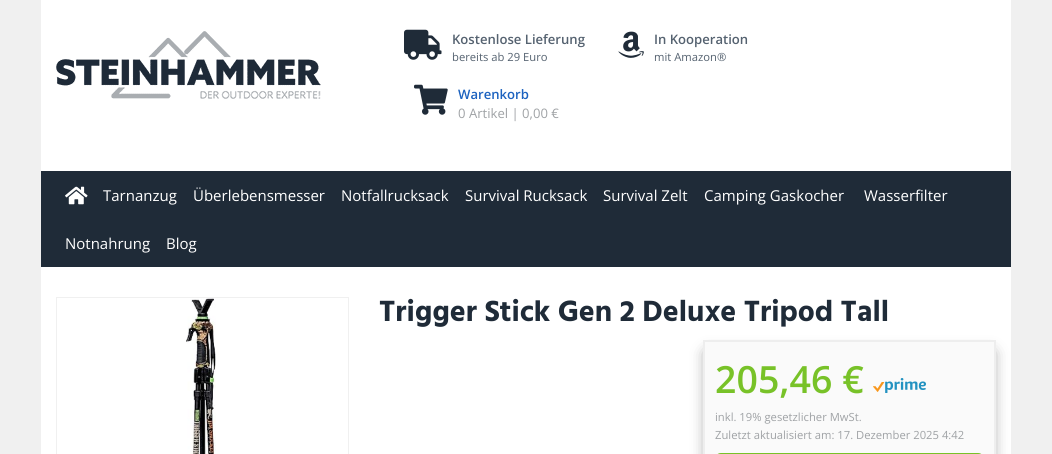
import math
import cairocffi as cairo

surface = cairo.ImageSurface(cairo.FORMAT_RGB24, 1052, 454)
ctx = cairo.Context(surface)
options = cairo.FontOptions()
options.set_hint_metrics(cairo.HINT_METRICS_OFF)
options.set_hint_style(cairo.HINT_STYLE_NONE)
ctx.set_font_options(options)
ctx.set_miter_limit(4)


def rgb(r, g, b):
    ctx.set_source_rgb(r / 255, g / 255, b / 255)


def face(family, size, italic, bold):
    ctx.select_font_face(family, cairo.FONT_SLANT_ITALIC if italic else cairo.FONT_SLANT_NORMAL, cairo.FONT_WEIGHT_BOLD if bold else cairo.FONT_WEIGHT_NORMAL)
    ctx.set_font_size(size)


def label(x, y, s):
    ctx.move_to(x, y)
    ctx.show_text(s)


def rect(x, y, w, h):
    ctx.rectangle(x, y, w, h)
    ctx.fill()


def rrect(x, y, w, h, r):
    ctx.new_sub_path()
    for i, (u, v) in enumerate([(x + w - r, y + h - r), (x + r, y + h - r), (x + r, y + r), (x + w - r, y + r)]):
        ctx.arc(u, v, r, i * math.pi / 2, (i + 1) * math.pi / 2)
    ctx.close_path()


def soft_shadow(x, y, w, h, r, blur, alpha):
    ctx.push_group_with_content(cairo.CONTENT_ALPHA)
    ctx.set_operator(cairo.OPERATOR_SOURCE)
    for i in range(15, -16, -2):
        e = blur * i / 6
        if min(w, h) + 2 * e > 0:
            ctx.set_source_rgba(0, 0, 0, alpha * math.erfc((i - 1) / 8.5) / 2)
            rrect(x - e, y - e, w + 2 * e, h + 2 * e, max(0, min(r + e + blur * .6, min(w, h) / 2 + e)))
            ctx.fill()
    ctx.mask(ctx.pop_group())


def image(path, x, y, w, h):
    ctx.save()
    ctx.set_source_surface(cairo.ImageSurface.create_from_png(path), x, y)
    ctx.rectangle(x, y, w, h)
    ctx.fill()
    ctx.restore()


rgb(240, 240, 240)
ctx.paint()
rgb(255, 255, 255)
rect(41, 0, 970, 171)
image('image0.png', 56, 31, 265, 68)
image('image1.png', 404, 29, 38, 31)
face('Open Sans SemiBold', 13.1, 0, 0)
rgb(85, 98, 112)
label(452, 44, 'Kostenlose Lieferung')
face('Open Sans', 11.25, 0, 0)
label(452, 61, 'bereits ab 29 Euro')
image('image2.png', 618, 31, 26, 27)
face('Open Sans SemiBold', 13.1, 0, 0)
label(654, 44, 'In Kooperation')
face('Open Sans', 11.25, 0, 0)
label(654, 61, 'mit Amazon®')
image('image3.png', 414, 84, 34, 31)
face('Open Sans SemiBold', 13.1, 0, 0)
rgb(28, 98, 191)
label(458, 99, 'Warenkorb')
face('Open Sans', 13.1, 0, 0)
rgb(159, 162, 165)
label(458, 118, '0 Artikel | 0,00 €')
rgb(31, 43, 56)
rect(41, 171, 970, 96)
image('image4.png', 65, 186, 23, 19)
face('Open Sans', 15, 0, 0)
rgb(255, 255, 255)
label(103, 201, 'Tarnanzug')
label(193, 201, 'Überlebensmesser')
label(341, 201, 'Notfallrucksack')
label(465, 201, 'Survival Rucksack')
label(603, 201, 'Survival Zelt')
label(704, 201, 'Camping Gaskocher')
label(864, 201, 'Wasserfilter')
label(65, 249, 'Notnahrung')
label(166, 249, 'Blog')
rect(41, 267, 970, 187)
ctx.rectangle(56.5, 297.5, 292, 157)
rgb(240, 240, 240)
ctx.set_line_width(1)
ctx.stroke()
image('image5.png', 186, 298, 30, 156)
face('Hind', 30, 0, 1)
rgb(31, 43, 56)
label(379, 321, 'Trigger Stick Gen 2 Deluxe Tripod Tall')
rgb(136, 136, 136)
soft_shadow(707, 353, 285, 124, 0, 7.5, 1)
rgb(250, 250, 250)
ctx.rectangle(704, 341, 291, 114)
ctx.fill_preserve()
rgb(238, 238, 238)
ctx.set_line_width(2)
ctx.stroke()
face('Open Sans SemiBold', 37.5, 0, 0)
rgb(120, 194, 40)
label(715, 393, '205,46 €')
image('image6.png', 873, 378, 53, 15)
face('Open Sans', 11.25, 0, 0)
rgb(159, 162, 165)
label(715, 421, 'inkl. 19% gesetzlicher MwSt.')
label(715, 439, 'Zuletzt aktualisiert am: 17. Dezember 2025 4:42')
rrect(715.5, 453.5, 268, 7, 5.5)
rgb(120, 194, 40)
ctx.set_line_width(1)
ctx.stroke()
surface.write_to_png('render.png')
